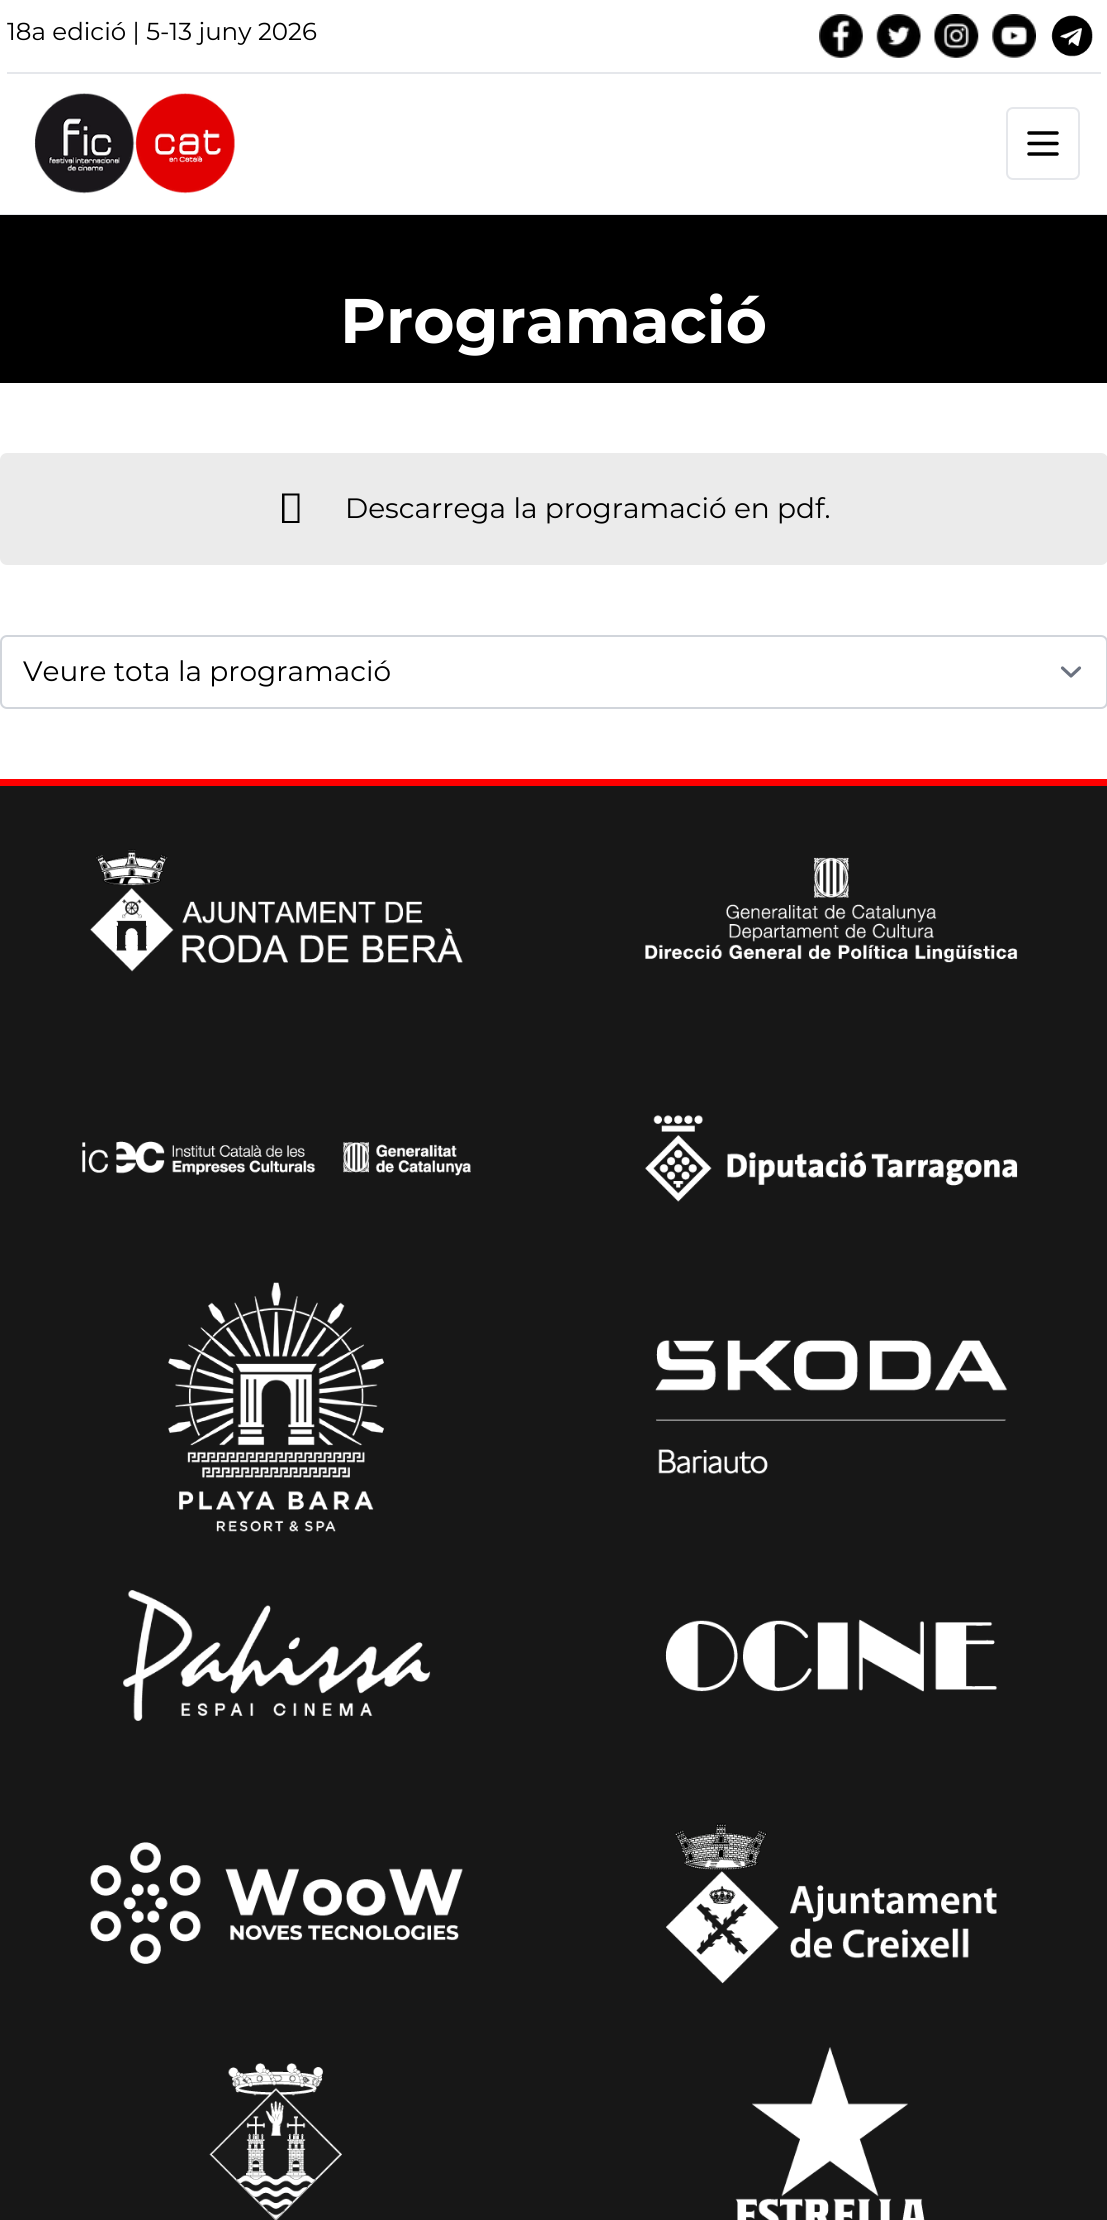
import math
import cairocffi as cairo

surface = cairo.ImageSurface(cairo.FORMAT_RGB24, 1107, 2220)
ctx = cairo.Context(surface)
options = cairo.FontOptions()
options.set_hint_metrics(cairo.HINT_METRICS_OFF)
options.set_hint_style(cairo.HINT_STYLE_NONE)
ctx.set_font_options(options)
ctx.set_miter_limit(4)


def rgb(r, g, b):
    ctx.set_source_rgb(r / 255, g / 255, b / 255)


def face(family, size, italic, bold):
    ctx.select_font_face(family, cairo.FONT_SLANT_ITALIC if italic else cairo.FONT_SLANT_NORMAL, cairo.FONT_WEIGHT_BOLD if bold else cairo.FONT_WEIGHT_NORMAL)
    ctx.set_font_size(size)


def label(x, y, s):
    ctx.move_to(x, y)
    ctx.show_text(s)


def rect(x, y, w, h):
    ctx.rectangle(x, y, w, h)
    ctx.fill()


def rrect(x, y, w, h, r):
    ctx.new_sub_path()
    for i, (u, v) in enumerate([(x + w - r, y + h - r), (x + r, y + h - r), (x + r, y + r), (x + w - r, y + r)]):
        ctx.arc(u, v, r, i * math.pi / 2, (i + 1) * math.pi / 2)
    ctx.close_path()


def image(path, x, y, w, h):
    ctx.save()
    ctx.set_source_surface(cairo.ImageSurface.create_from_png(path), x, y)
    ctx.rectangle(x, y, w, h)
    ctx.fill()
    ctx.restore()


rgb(255, 255, 255)
ctx.paint()
rgb(229, 231, 235)
rect(0, 214, 1107, 1)
rect(7, 72, 1094, 2)
face('Montserrat', 24.5, 0, 0)
rgb(0, 0, 0)
label(7, 40, '18a edició | 5-13 juny 2026')
image('image0.png', 819, 14, 44, 44)
image('image1.png', 876, 14, 45, 44)
image('image2.png', 934, 14, 45, 44)
image('image3.png', 992, 14, 44, 44)
image('image4.png', 1051, 15, 42, 42)
image('image5.png', 34, 93, 201, 101)
rrect(1007, 108, 72, 71, 6)
rgb(229, 231, 235)
ctx.stroke()
ctx.new_path()
ctx.move_to(1029, 133)
ctx.line_to(1057, 133)
ctx.move_to(1029, 143.5)
ctx.line_to(1057, 143.5)
ctx.move_to(1029, 154)
ctx.line_to(1057, 154)
rgb(0, 0, 0)
ctx.set_line_width(3.5)
ctx.set_line_cap(cairo.LINE_CAP_ROUND)
ctx.set_line_join(cairo.LINE_JOIN_ROUND)
ctx.stroke()
rect(0, 215, 1107, 168)
face('Montserrat', 63, 0, 1)
rgb(255, 255, 255)
label(340, 343, 'Programació')
rgb(235, 235, 235)
rrect(0, 453, 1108, 112, 7)
ctx.fill()
rgb(0, 0, 0)
ctx.new_path()
ctx.move_to(282, 523)
ctx.line_to(282, 493.5)
ctx.line_to(299.5, 493.5)
ctx.line_to(299.5, 523)
ctx.close_path()
ctx.move_to(284.5, 521)
ctx.line_to(297.5, 521)
ctx.line_to(297.5, 495.5)
ctx.line_to(284.5, 495.5)
ctx.close_path()
ctx.fill()
face('Montserrat', 28, 0, 0)
label(345, 518, 'Descarrega la programació en pdf.')
ctx.new_path()
ctx.move_to(1062.5, 668)
ctx.line_to(1071, 676)
ctx.line_to(1079.5, 668)
rgb(107, 114, 128)
ctx.set_line_width(3.2)
ctx.stroke()
rrect(1, 636, 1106, 72, 6)
rgb(209, 213, 219)
ctx.set_line_width(2)
ctx.set_line_cap(cairo.LINE_CAP_BUTT)
ctx.set_line_join(cairo.LINE_JOIN_MITER)
ctx.stroke()
rgb(0, 0, 0)
label(23, 681, 'Veure tota la programació')
rgb(23, 23, 23)
rect(0, 786, 1107, 1434)
rgb(255, 0, 0)
rect(0, 779, 1107, 7)
image('image6.png', 90, 849, 373, 123)
image('image7.png', 645, 857, 373, 106)
image('image8.png', 82, 1141, 389, 35)
image('image9.png', 645, 1115, 373, 87)
image('image10.png', 168, 1282, 216, 250)
image('image11.png', 655, 1340, 353, 134)
image('image12.png', 123, 1590, 308, 131)
image('image13.png', 665, 1619, 332, 73)
image('image14.png', 90, 1842, 373, 122)
image('image15.png', 666, 1823, 331, 161)
image('image16.png', 209, 2063, 133, 157)
image('image17.png', 735, 2047, 190, 173)
surface.write_to_png('render.png')
